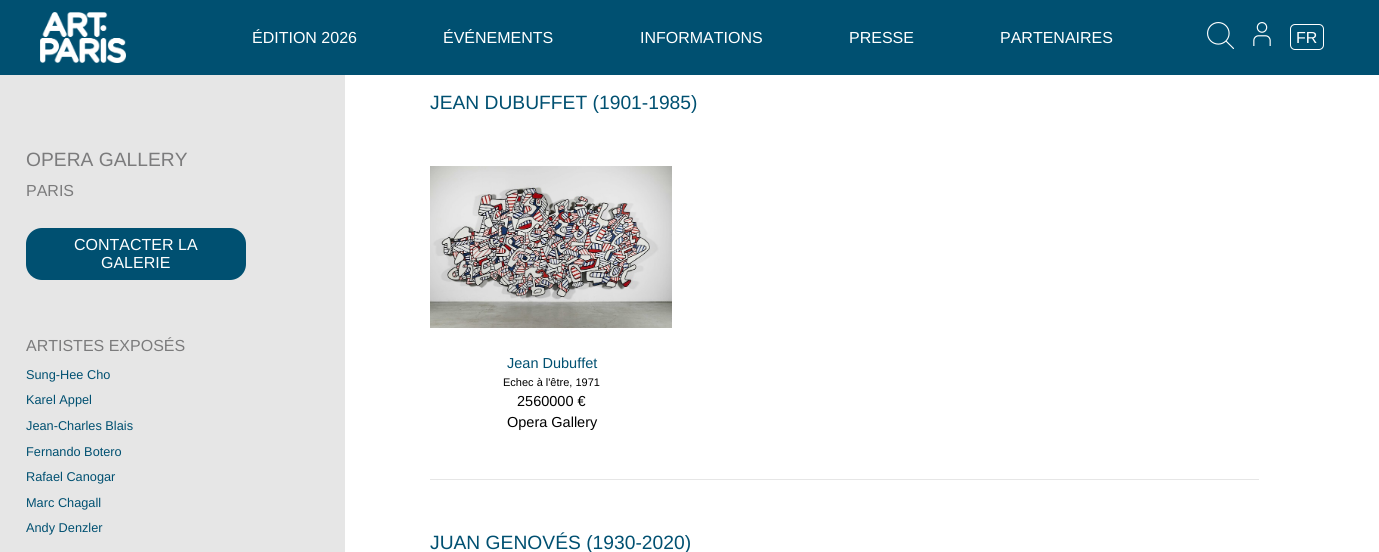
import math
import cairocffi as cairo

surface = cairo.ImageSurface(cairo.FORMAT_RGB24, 1379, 552)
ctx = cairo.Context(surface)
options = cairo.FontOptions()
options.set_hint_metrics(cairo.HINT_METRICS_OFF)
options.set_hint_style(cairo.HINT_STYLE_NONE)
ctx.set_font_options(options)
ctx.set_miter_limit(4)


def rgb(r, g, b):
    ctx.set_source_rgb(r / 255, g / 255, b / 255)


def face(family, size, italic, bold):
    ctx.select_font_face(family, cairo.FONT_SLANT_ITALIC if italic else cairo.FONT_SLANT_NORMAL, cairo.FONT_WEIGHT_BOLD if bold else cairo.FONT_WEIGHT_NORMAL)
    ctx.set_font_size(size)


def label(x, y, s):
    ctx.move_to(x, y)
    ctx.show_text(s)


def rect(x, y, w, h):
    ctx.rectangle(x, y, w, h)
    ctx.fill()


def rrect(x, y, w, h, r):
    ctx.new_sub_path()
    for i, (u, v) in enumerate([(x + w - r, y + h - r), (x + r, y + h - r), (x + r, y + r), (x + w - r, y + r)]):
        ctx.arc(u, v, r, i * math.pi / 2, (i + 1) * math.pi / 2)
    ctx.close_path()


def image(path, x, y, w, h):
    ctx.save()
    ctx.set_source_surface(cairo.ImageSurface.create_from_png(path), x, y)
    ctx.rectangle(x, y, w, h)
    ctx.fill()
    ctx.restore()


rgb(255, 255, 255)
ctx.paint()
rgb(0, 80, 113)
rect(0, 0, 1379, 75)
image('image0.png', 40, 12, 86, 51)
face('Liberation Sans', 16, 0, 0)
rgb(255, 255, 255)
label(252, 43, 'ÉDITION 2026')
label(443, 43, 'ÉVÉNEMENTS')
label(640, 43, 'INFORMATIONS')
label(849, 43, 'PRESSE')
label(1000, 43, 'PARTENAIRES')
image('image1.png', 1207, 22, 27, 27)
image('image2.png', 1253, 22, 18, 24)
rrect(1290.5, 24.5, 33, 25, 4.5)
ctx.set_line_width(1)
ctx.stroke()
label(1296, 43, 'FR')
rgb(230, 230, 230)
rect(0, 75, 345, 477)
face('Liberation Sans', 19.25, 0, 0)
rgb(123, 123, 124)
label(26, 166, 'OPERA GALLERY')
face('Liberation Sans', 16, 0, 0)
label(26, 196, 'PARIS')
rgb(0, 80, 113)
rrect(26, 228, 220, 52, 16)
ctx.fill()
rgb(255, 255, 255)
label(74, 250, 'CONTACTER LA')
label(101, 268, 'GALERIE')
rgb(123, 123, 124)
label(26, 351, 'ARTISTES EXPOSÉS')
face('Liberation Sans', 12.75, 0, 0)
rgb(0, 80, 113)
label(26, 379, 'Sung-Hee Cho')
label(26, 404, 'Karel Appel')
label(26, 430, 'Jean-Charles Blais')
label(26, 456, 'Fernando Botero')
label(26, 481, 'Rafael Canogar')
label(26, 507, 'Marc Chagall')
label(26, 532, 'Andy Denzler')
face('Liberation Sans', 19.25, 0, 0)
label(430, 109, 'JEAN DUBUFFET (1901-1985)')
image('image3.png', 430, 166, 242, 162)
face('Liberation Sans', 14.5, 0, 0)
label(507, 368, 'Jean Dubuffet')
face('Liberation Sans', 11, 0, 0)
rgb(0, 0, 0)
label(503, 386, 'Echec à l\'être, 1971')
face('Liberation Sans', 14.5, 0, 0)
label(517, 406, '2560000 €')
label(507, 427, 'Opera Gallery')
rgb(230, 230, 230)
rect(430, 479, 829, 1)
face('Liberation Sans', 19.25, 0, 0)
rgb(0, 80, 113)
label(430, 549, 'JUAN GENOVÉS (1930-2020)')
surface.write_to_png('render.png')
